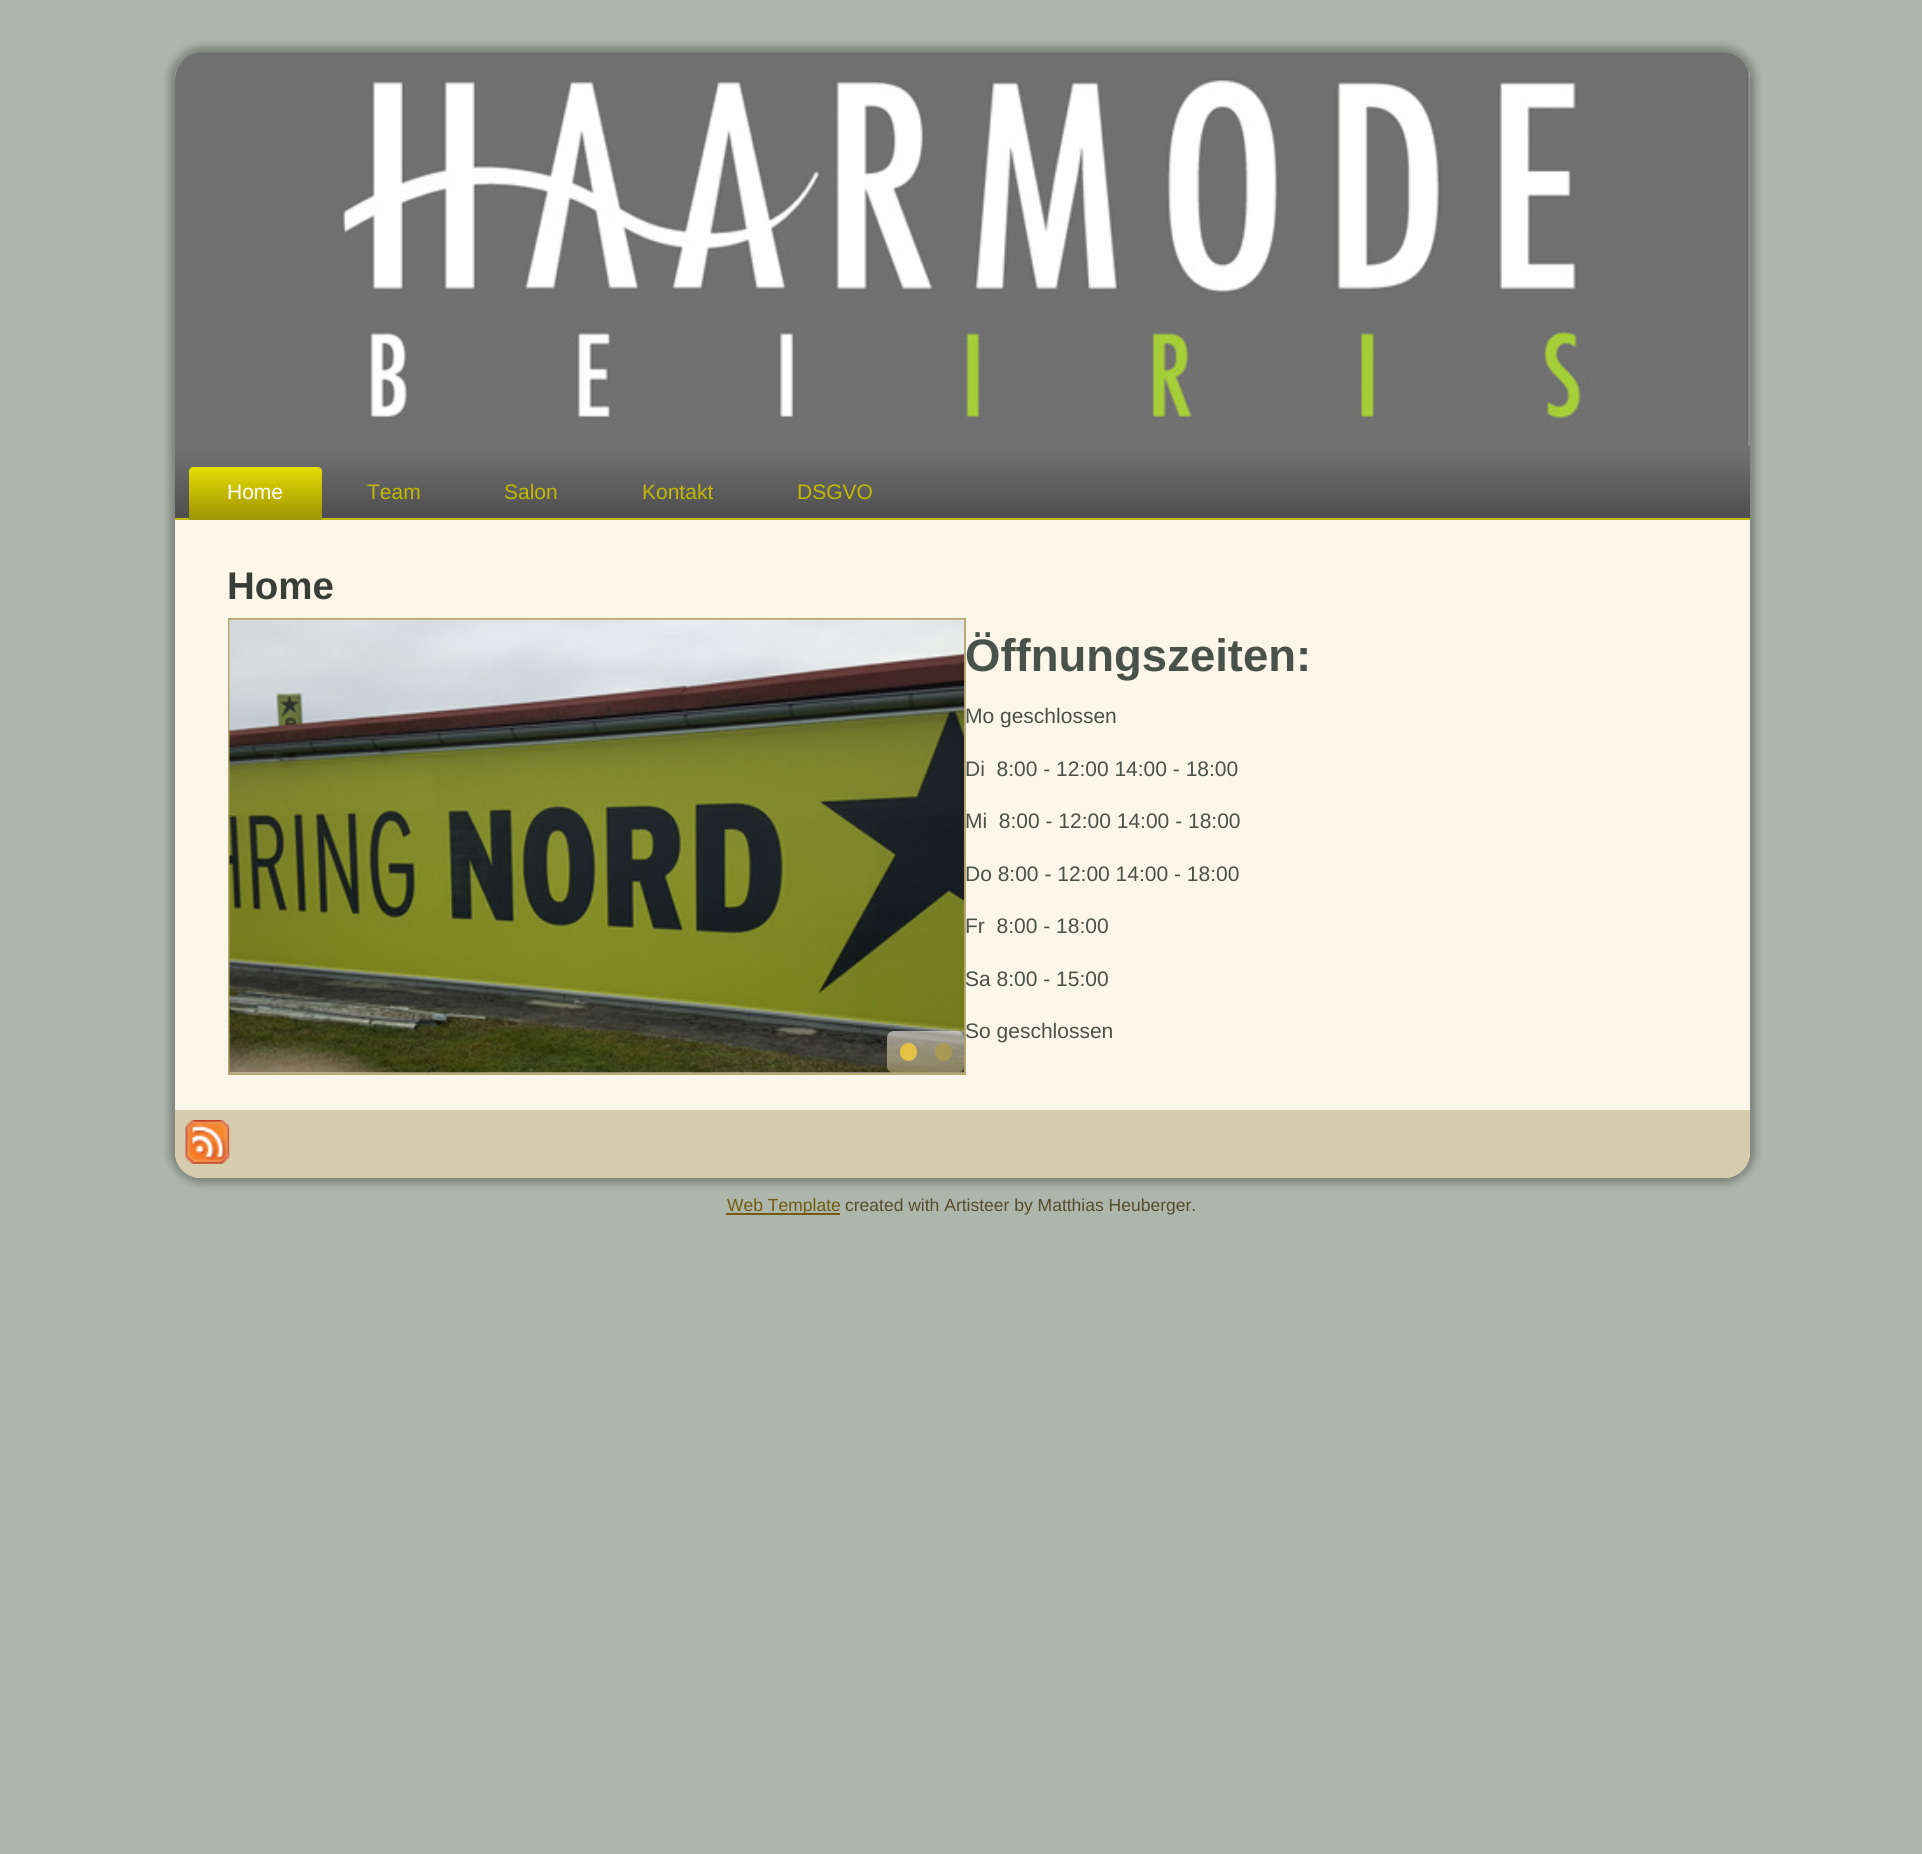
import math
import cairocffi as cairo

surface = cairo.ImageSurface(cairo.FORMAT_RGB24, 1922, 1854)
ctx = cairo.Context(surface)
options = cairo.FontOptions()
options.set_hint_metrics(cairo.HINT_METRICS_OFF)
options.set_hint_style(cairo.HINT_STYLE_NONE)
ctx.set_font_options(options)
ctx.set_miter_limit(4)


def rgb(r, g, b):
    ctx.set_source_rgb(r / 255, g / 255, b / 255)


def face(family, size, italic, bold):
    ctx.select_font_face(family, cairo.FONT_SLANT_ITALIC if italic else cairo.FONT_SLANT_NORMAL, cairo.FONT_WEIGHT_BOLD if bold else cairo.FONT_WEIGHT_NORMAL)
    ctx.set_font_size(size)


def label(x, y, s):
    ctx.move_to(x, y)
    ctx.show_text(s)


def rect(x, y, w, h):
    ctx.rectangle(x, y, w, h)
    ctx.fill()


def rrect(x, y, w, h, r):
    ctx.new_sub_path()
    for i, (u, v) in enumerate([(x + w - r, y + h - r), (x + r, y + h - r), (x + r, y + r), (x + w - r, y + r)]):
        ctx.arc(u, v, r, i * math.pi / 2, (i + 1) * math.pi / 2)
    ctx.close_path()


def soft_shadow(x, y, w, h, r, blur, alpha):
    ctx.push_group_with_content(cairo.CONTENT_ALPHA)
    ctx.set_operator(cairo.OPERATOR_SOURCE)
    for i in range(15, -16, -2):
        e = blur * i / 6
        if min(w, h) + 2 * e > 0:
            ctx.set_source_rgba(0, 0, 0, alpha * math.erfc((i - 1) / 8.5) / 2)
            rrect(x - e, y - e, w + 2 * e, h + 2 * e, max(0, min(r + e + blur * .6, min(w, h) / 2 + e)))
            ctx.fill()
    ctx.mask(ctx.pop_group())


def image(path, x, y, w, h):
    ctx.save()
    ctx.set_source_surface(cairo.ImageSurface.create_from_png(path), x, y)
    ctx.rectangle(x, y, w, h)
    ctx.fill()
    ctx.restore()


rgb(174, 181, 171)
ctx.paint()
rgb(0, 0, 0)
soft_shadow(170, 47, 1585, 1136, 32, 4.5, 0.3)
rgb(250, 246, 234)
rrect(175, 53, 1575, 1125, 26)
ctx.fill()
image('image0.png', 175, 52, 1575, 394)
gradient = cairo.LinearGradient(963, 446, 963, 520)
gradient.add_color_stop_rgba(0, 0.451, 0.451, 0.451, 1)
gradient.add_color_stop_rgba(1, 0.302, 0.302, 0.302, 1)
ctx.set_source(gradient)
rect(175, 446, 1575, 72)
rgb(193, 185, 3)
rect(175, 518, 1575, 2)
gradient = cairo.LinearGradient(256, 467, 256, 520)
gradient.add_color_stop_rgba(0, 0.906, 0.863, 0.016, 1)
gradient.add_color_stop_rgba(1, 0.612, 0.58, 0.008, 1)
ctx.set_source(gradient)
ctx.new_path()
ctx.move_to(193, 467)
ctx.line_to(318, 467)
ctx.curve_to(320, 467, 322, 469, 322, 471)
ctx.line_to(322, 520)
ctx.line_to(189, 520)
ctx.line_to(189, 471)
ctx.curve_to(189, 469, 191, 467, 193, 467)
ctx.close_path()
ctx.fill()
face('Liberation Sans', 21, 0, 0)
rgb(255, 255, 255)
label(227, 499, 'Home')
rgb(193, 185, 3)
label(367, 499, 'Team')
label(504, 499, 'Salon')
label(642, 499, 'Kontakt')
label(797, 499, 'DSGVO')
face('Liberation Sans', 38.5, 0, 1)
rgb(57, 62, 55)
label(227, 599, 'Home')
ctx.rectangle(229, 619, 736, 455)
rgb(183, 169, 113)
ctx.stroke()
image('image1.png', 229, 619, 736, 454)
gradient = cairo.LinearGradient(926, 1031, 926, 1073)
gradient.add_color_stop_rgba(0, 0.941, 0.929, 0.878, 0.6)
gradient.add_color_stop_rgba(1, 0.725, 0.671, 0.455, 0.6)
ctx.set_source(gradient)
rrect(887, 1031, 77, 42, 7)
ctx.fill()
rgb(228, 193, 68)
rrect(900, 1043, 17, 18, 8.5)
ctx.fill()
rgb(170, 153, 85)
rrect(935, 1043, 17, 18, 8.5)
ctx.fill()
face('Liberation Sans', 45.5, 0, 1)
rgb(74, 81, 72)
label(965, 671, 'Öffnungszeiten:')
face('Liberation Sans', 21, 0, 0)
label(965, 723, 'Mo geschlossen')
label(965, 776, 'Di  8:00 - 12:00 14:00 - 18:00')
label(965, 828, 'Mi  8:00 - 12:00 14:00 - 18:00')
label(965, 881, 'Do 8:00 - 12:00 14:00 - 18:00')
label(965, 933, 'Fr  8:00 - 18:00')
label(965, 986, 'Sa 8:00 - 15:00')
label(965, 1038, 'So geschlossen')
rgb(212, 204, 170)
ctx.new_path()
ctx.move_to(175, 1110)
ctx.line_to(1750, 1110)
ctx.line_to(1750, 1152)
ctx.curve_to(1750, 1166.5, 1738.5, 1178, 1724, 1178)
ctx.line_to(201, 1178)
ctx.curve_to(186.5, 1178, 175, 1166.5, 175, 1152)
ctx.close_path()
ctx.fill()
image('image2.png', 185, 1120, 45, 44)
rgb(112, 91, 16)
rect(726, 1213, 114, 2)
face('Liberation Sans', 17.5, 0, 0)
label(727, 1211, 'Web Template')
rgb(85, 76, 43)
label(845, 1211, 'created with Artisteer by Matthias Heuberger.')
surface.write_to_png('render.png')
